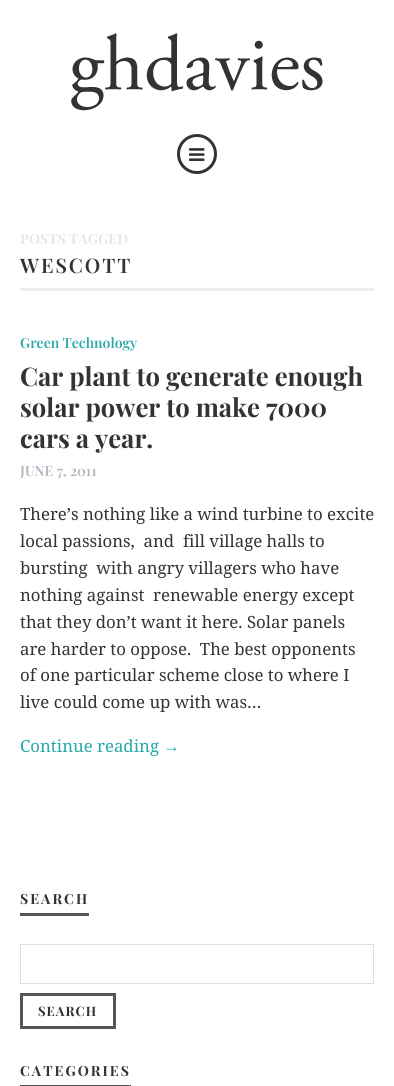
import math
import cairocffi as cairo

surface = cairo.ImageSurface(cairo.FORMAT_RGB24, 394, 1086)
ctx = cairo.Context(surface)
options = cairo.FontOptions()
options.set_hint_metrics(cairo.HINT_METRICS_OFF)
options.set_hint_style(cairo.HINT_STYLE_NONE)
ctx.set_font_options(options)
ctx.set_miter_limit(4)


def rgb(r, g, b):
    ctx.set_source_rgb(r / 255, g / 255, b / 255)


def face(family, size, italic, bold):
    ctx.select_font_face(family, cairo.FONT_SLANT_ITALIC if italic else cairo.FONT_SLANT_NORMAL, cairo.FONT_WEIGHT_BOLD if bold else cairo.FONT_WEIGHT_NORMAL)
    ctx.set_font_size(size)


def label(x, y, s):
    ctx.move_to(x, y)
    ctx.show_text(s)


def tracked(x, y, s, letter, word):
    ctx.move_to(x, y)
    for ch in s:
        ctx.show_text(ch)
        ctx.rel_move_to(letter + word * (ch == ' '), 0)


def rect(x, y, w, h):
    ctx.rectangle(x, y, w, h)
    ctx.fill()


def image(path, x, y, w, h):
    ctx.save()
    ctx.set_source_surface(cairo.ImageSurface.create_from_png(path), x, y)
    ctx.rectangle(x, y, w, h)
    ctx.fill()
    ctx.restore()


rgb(255, 255, 255)
ctx.paint()
image('image0.png', 71, 33, 252, 78)
ctx.arc(197, 154, 18.5, 0, 2 * math.pi)
rgb(51, 51, 51)
ctx.set_line_width(3)
ctx.stroke()
image('image1.png', 189, 148, 16, 13)
rgb(238, 238, 238)
rect(20, 288, 354, 3)
face('Playfair Display', 14, 0, 1)
rgb(231, 231, 231)
label(20, 244, 'POSTS TAGGED')
face('Playfair Display SemiBold', 20, 0, 0)
rgb(51, 51, 51)
tracked(20, 273, 'WESCOTT', 2, 0)
face('Playfair Display SemiBold', 14, 0, 0)
rgb(40, 168, 168)
label(20, 348, 'Green Technology')
face('Playfair Display', 25.6, 0, 1)
rgb(51, 51, 51)
label(20, 386, 'Car plant to generate enough')
label(20, 417, 'solar power to make 7000')
label(20, 448, 'cars a year.')
face('Playfair Display SemiBold', 14, 0, 0)
rgb(174, 182, 191)
label(20, 476, 'JUNE 7, 2011')
face('Noto Serif', 16.8, 0, 0)
rgb(51, 51, 51)
label(20, 520, 'There’s nothing like a wind turbine to excite')
label(20, 547, 'local passions,  and  fill village halls to')
label(20, 574, 'bursting  with angry villagers who have')
label(20, 601, 'nothing against  renewable energy except')
label(20, 628, 'that they don’t want it here. Solar panels')
label(20, 655, 'are harder to oppose.  The best opponents')
label(20, 681, 'of one particular scheme close to where I')
label(20, 708, 'live could come up with was…')
rgb(40, 168, 168)
label(20, 752, 'Continue reading')
face('Liberation Serif', 16.8, 0, 0)
label(163, 752, '→')
rgb(85, 85, 85)
rect(20, 913, 69, 3)
face('Playfair Display', 14, 0, 1)
rgb(51, 51, 51)
tracked(20, 904, 'SEARCH', 2, 0)
ctx.rectangle(20.5, 944.5, 353, 39)
rgb(221, 221, 221)
ctx.set_line_width(1)
ctx.stroke()
ctx.rectangle(21.5, 994.5, 93, 33)
rgb(85, 85, 85)
ctx.set_line_width(3)
ctx.stroke()
face('Playfair Display', 13, 0, 1)
rgb(51, 51, 51)
tracked(38, 1016, 'SEARCH', 1, 0)
rgb(85, 85, 85)
rect(20, 1085, 111, 1)
face('Playfair Display', 14, 0, 1)
rgb(51, 51, 51)
tracked(20, 1076, 'CATEGORIES', 2, 0)
surface.write_to_png('render.png')
